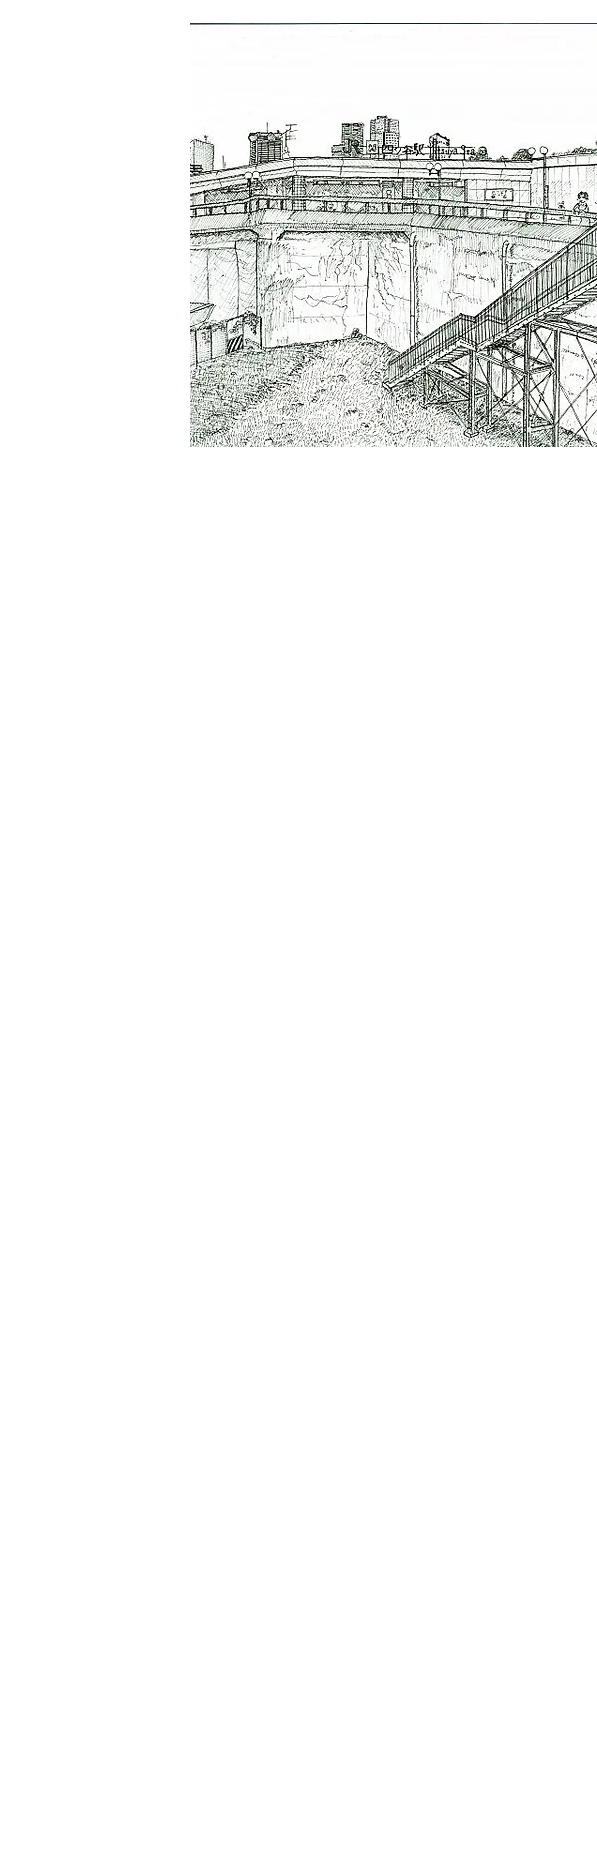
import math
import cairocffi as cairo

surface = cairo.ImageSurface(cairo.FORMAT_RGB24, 597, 1856)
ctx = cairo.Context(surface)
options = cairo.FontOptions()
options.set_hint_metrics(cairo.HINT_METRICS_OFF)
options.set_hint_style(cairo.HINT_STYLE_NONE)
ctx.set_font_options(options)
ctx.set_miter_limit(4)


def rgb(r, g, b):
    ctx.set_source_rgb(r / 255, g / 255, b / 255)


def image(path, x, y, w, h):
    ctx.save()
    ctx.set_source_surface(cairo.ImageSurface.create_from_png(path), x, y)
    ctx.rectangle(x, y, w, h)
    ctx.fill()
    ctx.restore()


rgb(255, 255, 255)
ctx.paint()
image('image0.png', 190, 23, 407, 424)
surface.write_to_png('render.png')
